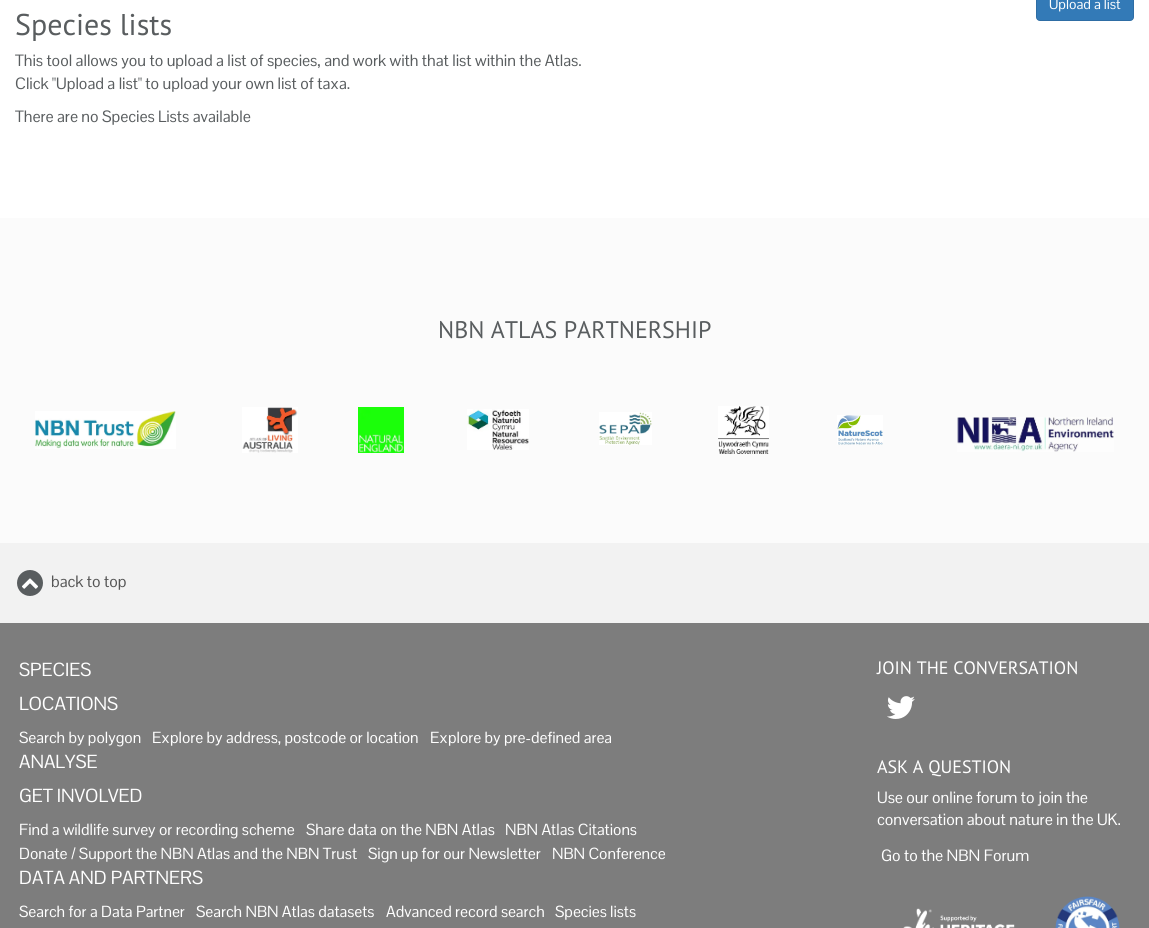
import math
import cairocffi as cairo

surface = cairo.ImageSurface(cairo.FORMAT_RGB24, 1149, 928)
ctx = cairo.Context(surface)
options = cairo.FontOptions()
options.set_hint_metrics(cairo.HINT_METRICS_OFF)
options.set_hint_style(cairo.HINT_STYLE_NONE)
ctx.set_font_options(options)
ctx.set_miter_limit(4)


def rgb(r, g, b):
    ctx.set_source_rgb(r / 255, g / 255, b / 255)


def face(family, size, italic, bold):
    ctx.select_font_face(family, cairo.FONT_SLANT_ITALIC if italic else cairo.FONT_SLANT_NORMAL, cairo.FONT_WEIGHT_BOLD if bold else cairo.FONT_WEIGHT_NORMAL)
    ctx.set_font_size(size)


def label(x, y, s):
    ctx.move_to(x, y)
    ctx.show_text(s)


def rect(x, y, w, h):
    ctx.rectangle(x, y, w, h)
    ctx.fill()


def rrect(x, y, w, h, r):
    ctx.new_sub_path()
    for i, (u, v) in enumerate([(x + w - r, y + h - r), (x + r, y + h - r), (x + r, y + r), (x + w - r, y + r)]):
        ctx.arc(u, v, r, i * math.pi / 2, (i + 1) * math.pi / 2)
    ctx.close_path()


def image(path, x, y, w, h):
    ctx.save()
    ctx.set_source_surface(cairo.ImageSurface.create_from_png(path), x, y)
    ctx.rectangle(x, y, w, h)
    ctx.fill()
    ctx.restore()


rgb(255, 255, 255)
ctx.paint()
rgb(51, 122, 183)
rrect(1036.5, -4.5, 97, 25, 3.5)
ctx.fill_preserve()
rgb(46, 109, 164)
ctx.set_line_width(1)
ctx.stroke()
face('Pontano Sans', 14, 0, 0)
rgb(255, 255, 255)
label(1049, 9, 'Upload a list')
face('PT Sans', 30, 0, 0)
rgb(89, 93, 95)
label(15, 35, 'Species lists')
face('Pontano Sans', 16, 0, 0)
label(15, 66, 'This tool allows you to upload a list of species, and work with that list within the Atlas.')
label(15, 89, 'Click "Upload a list" to upload your own list of taxa.')
label(15, 122, 'There are no Species Lists available')
rgb(251, 251, 251)
rect(0, 218, 1149, 325)
face('PT Sans', 24, 0, 0)
rgb(89, 93, 95)
label(438, 338, 'NBN ATLAS PARTNERSHIP')
image('image0.png', 35, 411, 141, 38)
image('image1.png', 242, 407, 56, 46)
image('image2.png', 358, 407, 46, 46)
image('image3.png', 467, 409, 62, 41)
image('image4.png', 599, 412, 53, 33)
image('image5.png', 718, 406, 51, 48)
image('image6.png', 837, 415, 46, 30)
image('image7.png', 957, 417, 157, 35)
rgb(242, 242, 242)
rect(0, 543, 1149, 80)
rgb(89, 93, 95)
ctx.arc(30, 583, 13, 0, 2 * math.pi)
ctx.fill()
face('Pontano Sans', 16, 0, 0)
rgb(85, 85, 85)
label(51, 587, 'back to top')
image('image8.png', 22, 578, 16, 11)
rgb(125, 125, 125)
rect(0, 623, 1149, 305)
face('Pontano Sans', 18.5, 0, 0)
rgb(255, 255, 255)
label(19, 676, 'SPECIES')
label(19, 710, 'LOCATIONS')
face('Pontano Sans', 15.7, 0, 0)
label(19, 743, 'Search by polygon')
label(152, 743, 'Explore by address, postcode or location')
label(430, 743, 'Explore by pre-defined area')
face('Pontano Sans', 18.5, 0, 0)
label(19, 768, 'ANALYSE')
label(19, 802, 'GET INVOLVED')
face('Pontano Sans', 15.7, 0, 0)
label(19, 835, 'Find a wildlife survey or recording scheme')
label(306, 835, 'Share data on the NBN Atlas')
label(505, 835, 'NBN Atlas Citations')
label(19, 859, 'Donate / Support the NBN Atlas and the NBN Trust')
label(368, 859, 'Sign up for our Newsletter')
label(552, 859, 'NBN Conference')
face('Pontano Sans', 18.5, 0, 0)
label(19, 884, 'DATA AND PARTNERS')
face('Pontano Sans', 15.7, 0, 0)
label(19, 917, 'Search for a Data Partner')
label(196, 917, 'Search NBN Atlas datasets')
label(386, 917, 'Advanced record search')
label(555, 917, 'Species lists')
face('PT Sans', 18, 0, 0)
label(877, 674, 'JOIN THE CONVERSATION')
image('image9.png', 887, 696, 28, 23)
label(877, 773, 'ASK A QUESTION')
face('Pontano Sans', 16, 0, 0)
label(877, 803, 'Use our online forum to join the')
label(877, 825, 'conversation about nature in the UK.')
label(881, 861, 'Go to the NBN Forum')
image('image10.png', 903, 908, 112, 20)
image('image11.png', 1055, 896, 65, 32)
surface.write_to_png('render.png')
